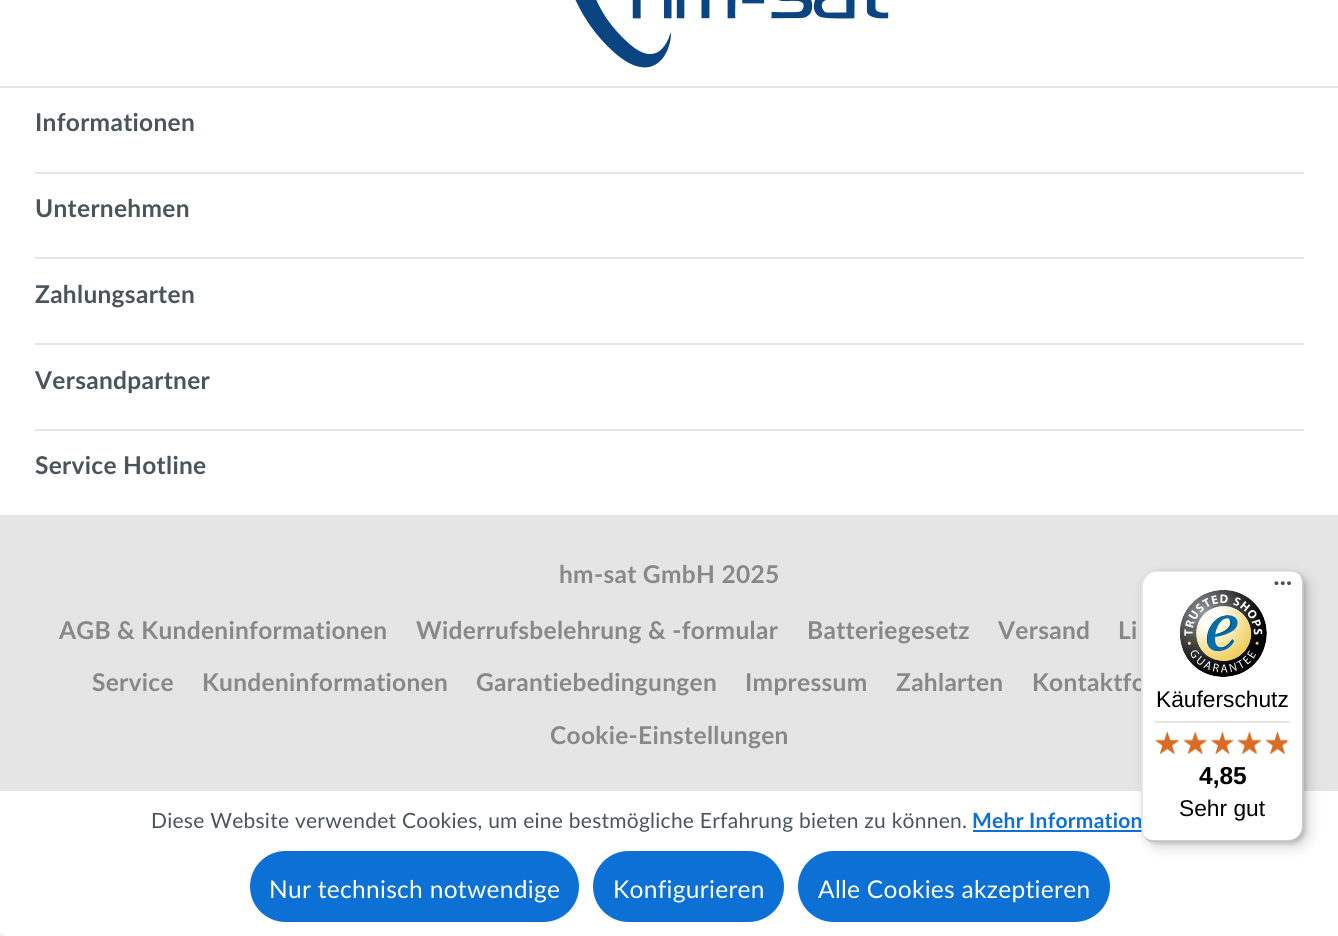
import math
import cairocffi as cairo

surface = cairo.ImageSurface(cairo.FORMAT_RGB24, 1338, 936)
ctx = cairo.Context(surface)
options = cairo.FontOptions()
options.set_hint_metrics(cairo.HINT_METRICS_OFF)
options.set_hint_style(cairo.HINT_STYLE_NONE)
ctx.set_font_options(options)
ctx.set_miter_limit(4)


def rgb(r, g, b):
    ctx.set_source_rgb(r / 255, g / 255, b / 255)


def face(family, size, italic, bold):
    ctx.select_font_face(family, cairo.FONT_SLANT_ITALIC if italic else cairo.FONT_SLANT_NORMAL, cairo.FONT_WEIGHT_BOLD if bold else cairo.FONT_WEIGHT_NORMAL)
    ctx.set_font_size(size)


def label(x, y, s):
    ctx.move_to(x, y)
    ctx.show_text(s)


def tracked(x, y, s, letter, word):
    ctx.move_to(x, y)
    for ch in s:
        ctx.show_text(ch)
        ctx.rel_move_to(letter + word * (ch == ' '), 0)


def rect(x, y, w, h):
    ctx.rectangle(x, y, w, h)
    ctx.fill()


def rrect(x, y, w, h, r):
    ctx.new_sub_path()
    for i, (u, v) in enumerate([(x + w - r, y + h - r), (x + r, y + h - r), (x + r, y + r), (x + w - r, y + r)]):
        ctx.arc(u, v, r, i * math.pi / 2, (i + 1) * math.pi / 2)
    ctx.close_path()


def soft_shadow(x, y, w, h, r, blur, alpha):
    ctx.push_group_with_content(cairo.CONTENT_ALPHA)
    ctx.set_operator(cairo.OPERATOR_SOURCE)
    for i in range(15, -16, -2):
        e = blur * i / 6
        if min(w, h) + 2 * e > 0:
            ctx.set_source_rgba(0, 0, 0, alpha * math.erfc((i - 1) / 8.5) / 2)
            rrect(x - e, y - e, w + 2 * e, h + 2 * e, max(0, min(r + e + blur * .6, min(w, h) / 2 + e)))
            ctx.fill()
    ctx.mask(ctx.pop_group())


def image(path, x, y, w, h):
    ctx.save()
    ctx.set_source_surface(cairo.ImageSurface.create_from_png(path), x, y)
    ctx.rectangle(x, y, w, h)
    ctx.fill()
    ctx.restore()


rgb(255, 255, 255)
ctx.paint()
rgb(229, 229, 229)
rect(0, 86, 1338, 2)
image('image0.png', 575, 0, 314, 68)
rect(35, 172, 1269, 2)
face('Lato', 24.5, 0, 1)
rgb(74, 84, 91)
tracked(35, 131, 'Informationen', 0.3, 0)
rgb(229, 229, 229)
rect(35, 257, 1269, 2)
rgb(74, 84, 91)
tracked(35, 217, 'Unternehmen', 0.3, 0)
rgb(229, 229, 229)
rect(35, 343, 1269, 2)
rgb(74, 84, 91)
tracked(35, 303, 'Zahlungsarten', 0.3, 0)
rgb(229, 229, 229)
rect(35, 429, 1269, 2)
rgb(74, 84, 91)
tracked(35, 389, 'Versandpartner', 0.3, 0)
tracked(35, 474, 'Service Hotline', 0.3, 0)
rgb(229, 229, 229)
rect(0, 515, 1338, 276)
rgb(136, 136, 136)
tracked(559, 583, 'hm-sat GmbH 2025', 0.3, 0)
tracked(59, 639, 'AGB & Kundeninformationen', 0.3, 0)
tracked(416, 639, 'Widerrufsbelehrung & -formular', 0.3, 0)
tracked(807, 639, 'Batteriegesetz', 0.3, 0)
tracked(998, 639, 'Versand', 0.3, 0)
tracked(1118, 639, 'Li', 0.3, 0)
tracked(92, 691, 'Service', 0.3, 0)
tracked(202, 691, 'Kundeninformationen', 0.3, 0)
tracked(476, 691, 'Garantiebedingungen', 0.3, 0)
tracked(745, 691, 'Impressum', 0.3, 0)
tracked(896, 691, 'Zahlarten', 0.3, 0)
tracked(1032, 691, 'Kontaktfo', 0.3, 0)
tracked(550, 744, 'Cookie-Einstellungen', 0.3, 0)
rgb(13, 112, 212)
rect(973, 830, 169, 2)
rgb(0, 0, 0)
soft_shadow(1146, 576, 163, 271, 14, 7, 0.15)
soft_shadow(1143, 572, 163, 272, 14, 2, 0.15)
face('Lato', 21, 0, 1)
rgb(13, 112, 212)
tracked(972, 828, 'Mehr Information', 0.25, 0)
rgb(255, 255, 255)
rrect(1141, 571, 163, 271, 14)
ctx.fill()
ctx.set_source_rgba(0, 0, 0, 0.1)
ctx.new_path()
ctx.move_to(1157, 572)
ctx.line_to(1292, 572)
ctx.curve_to(1294, 572, 1297, 573, 1299, 574)
ctx.curve_to(1296, 572, 1293, 571, 1290, 571)
ctx.line_to(1155, 571)
ctx.curve_to(1147, 571, 1141, 577, 1141, 585)
ctx.line_to(1141, 828)
ctx.curve_to(1141, 833, 1143, 837, 1147, 839)
ctx.curve_to(1144, 837, 1143, 833, 1143, 830)
ctx.line_to(1143, 586)
ctx.curve_to(1143, 579, 1149, 572, 1157, 572)
ctx.close_path()
ctx.fill()
ctx.set_source_rgba(0, 0, 0, 0.2)
ctx.new_path()
ctx.move_to(1144, 836)
ctx.curve_to(1146, 840, 1150, 842, 1155, 842)
ctx.line_to(1290, 842)
ctx.curve_to(1298, 842, 1304, 836, 1304, 828)
ctx.line_to(1304, 585)
ctx.curve_to(1304, 581, 1302, 577, 1299, 575)
ctx.curve_to(1301, 577, 1302, 580, 1302, 583)
ctx.line_to(1302, 826)
ctx.curve_to(1302, 834, 1296, 840, 1288, 840)
ctx.line_to(1153, 840)
ctx.curve_to(1150, 840, 1146, 839, 1144, 836)
ctx.close_path()
ctx.fill()
ctx.set_source_rgba(0.196, 0.196, 0.196, 0.2)
ctx.new_path()
ctx.move_to(1144, 836)
ctx.curve_to(1146, 840, 1150, 842, 1155, 842)
ctx.line_to(1290, 842)
ctx.curve_to(1298, 842, 1304, 836, 1304, 828)
ctx.line_to(1304, 585)
ctx.curve_to(1304, 582, 1303, 579, 1301, 576)
ctx.curve_to(1302, 578, 1303, 581, 1303, 583)
ctx.line_to(1303, 827)
ctx.curve_to(1303, 834, 1296, 841, 1289, 841)
ctx.line_to(1154, 841)
ctx.curve_to(1150, 841, 1146, 839, 1144, 836)
ctx.close_path()
ctx.fill()
ctx.set_source_rgba(1, 1, 1, 0.3)
ctx.new_path()
ctx.move_to(1146, 838)
ctx.curve_to(1148, 841, 1151, 842, 1155, 842)
ctx.line_to(1290, 842)
ctx.curve_to(1298, 842, 1304, 836, 1304, 828)
ctx.line_to(1304, 585)
ctx.curve_to(1304, 581, 1303, 578, 1300, 576)
ctx.curve_to(1302, 578, 1303, 581, 1303, 584)
ctx.line_to(1303, 827)
ctx.curve_to(1303, 835, 1297, 841, 1289, 841)
ctx.line_to(1154, 841)
ctx.curve_to(1151, 841, 1148, 840, 1146, 838)
ctx.close_path()
ctx.fill()
image('image1.png', 1274, 581, 17, 4)
image('image2.png', 1180, 590, 87, 87)
face('Liberation Sans', 22.75, 0, 0)
rgb(0, 0, 0)
label(1156, 707, 'Käuferschutz')
rgb(229, 229, 229)
rect(1155, 721, 135, 2)
image('image3.png', 1155, 732, 24, 22)
image('image4.png', 1183, 731, 24, 23)
image('image5.png', 1211, 732, 23, 22)
image('image6.png', 1237, 731, 25, 23)
image('image7.png', 1265, 732, 24, 22)
image('image8.png', 1155, 731, 24, 24)
image('image9.png', 1183, 731, 25, 24)
image('image10.png', 1211, 731, 23, 24)
image('image11.png', 1237, 731, 25, 24)
image('image12.png', 1265, 731, 22, 24)
face('Liberation Sans', 24.5, 0, 1)
rgb(0, 0, 0)
label(1199, 784, '4,85')
face('Liberation Sans', 22.75, 0, 0)
label(1179, 816, 'Sehr gut')
face('Lato', 21, 0, 0)
rgb(74, 84, 91)
tracked(151, 828, 'Diese Website verwendet Cookies, um eine bestmögliche Erfahrung bieten zu können.', 0.25, 0)
rgb(13, 112, 212)
rrect(251, 852, 327, 69, 34.5)
ctx.fill_preserve()
ctx.stroke()
face('Lato', 24.5, 0, 0)
rgb(255, 255, 255)
tracked(269, 898, 'Nur technisch notwendige', 0.3, 0)
rgb(13, 112, 212)
rrect(594, 852, 189, 69, 34.5)
ctx.fill_preserve()
ctx.stroke()
rgb(255, 255, 255)
tracked(613, 898, 'Konfigurieren', 0.3, 0)
rgb(13, 112, 212)
rrect(799, 852, 310, 69, 34.5)
ctx.fill_preserve()
ctx.stroke()
rgb(255, 255, 255)
tracked(818, 898, 'Alle Cookies akzeptieren', 0.3, 0)
rgb(245, 245, 245)
rect(0, 933, 4, 3)
surface.write_to_png('render.png')
